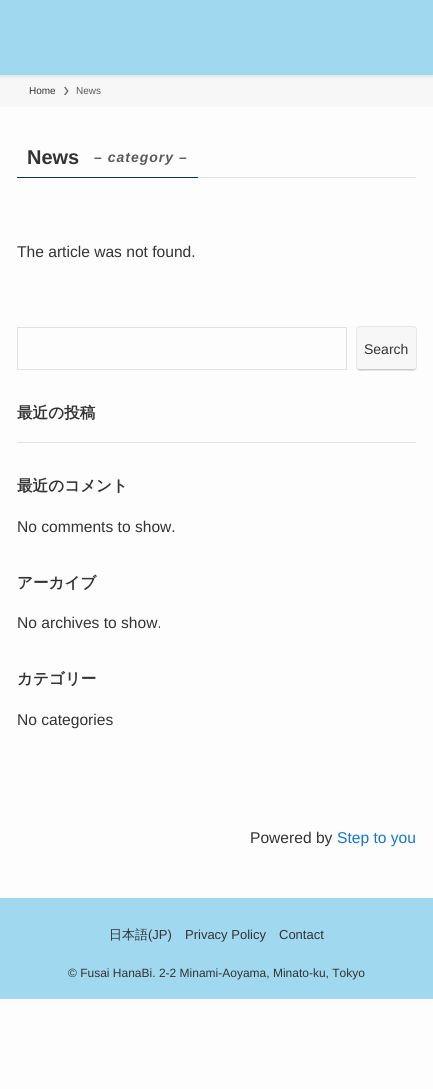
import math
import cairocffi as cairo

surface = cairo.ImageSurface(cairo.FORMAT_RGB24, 433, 1089)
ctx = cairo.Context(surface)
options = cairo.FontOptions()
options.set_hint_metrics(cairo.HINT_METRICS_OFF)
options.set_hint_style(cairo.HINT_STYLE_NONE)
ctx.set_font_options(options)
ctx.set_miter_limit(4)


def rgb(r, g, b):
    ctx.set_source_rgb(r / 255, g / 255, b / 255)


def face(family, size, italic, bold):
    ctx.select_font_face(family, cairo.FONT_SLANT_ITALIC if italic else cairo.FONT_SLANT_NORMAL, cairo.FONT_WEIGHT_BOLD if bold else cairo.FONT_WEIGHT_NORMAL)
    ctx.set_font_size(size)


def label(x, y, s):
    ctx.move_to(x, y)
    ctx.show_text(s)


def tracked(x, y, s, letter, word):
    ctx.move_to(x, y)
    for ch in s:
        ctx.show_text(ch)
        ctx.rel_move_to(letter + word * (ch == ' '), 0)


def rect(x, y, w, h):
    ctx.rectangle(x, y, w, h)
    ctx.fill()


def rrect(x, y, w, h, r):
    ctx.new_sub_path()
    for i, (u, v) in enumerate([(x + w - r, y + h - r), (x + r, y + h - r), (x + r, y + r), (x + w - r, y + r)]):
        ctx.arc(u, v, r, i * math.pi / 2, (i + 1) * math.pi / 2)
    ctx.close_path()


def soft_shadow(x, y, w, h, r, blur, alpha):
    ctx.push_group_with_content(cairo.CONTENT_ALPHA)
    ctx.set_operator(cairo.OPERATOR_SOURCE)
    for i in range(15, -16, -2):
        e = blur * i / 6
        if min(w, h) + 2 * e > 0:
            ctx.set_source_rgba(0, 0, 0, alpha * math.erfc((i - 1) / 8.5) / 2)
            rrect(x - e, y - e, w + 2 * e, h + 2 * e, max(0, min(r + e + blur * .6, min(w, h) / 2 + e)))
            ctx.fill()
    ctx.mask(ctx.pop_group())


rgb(253, 253, 253)
ctx.paint()
rgb(247, 247, 247)
rect(0, 75, 433, 32)
rgb(0, 0, 0)
soft_shadow(0, 1, 433, 75, 0, 2, 0.12)
rgb(160, 216, 239)
rect(0, 0, 433, 75)
face('Liberation Sans', 10, 0, 0)
rgb(51, 51, 51)
label(29, 94, 'Home')
rgb(90, 90, 90)
ctx.new_path()
ctx.move_to(65.5, 87)
ctx.line_to(64, 87)
ctx.line_to(67, 91)
ctx.line_to(64, 95)
ctx.line_to(65.5, 95)
ctx.line_to(68.5, 91)
ctx.close_path()
ctx.fill()
label(76, 94, 'News')
rgb(226, 226, 226)
rect(198, 177, 218, 1)
rgb(4, 56, 76)
rect(17, 177, 181, 1)
face('Liberation Sans', 20, 0, 1)
rgb(51, 51, 51)
label(27, 164, 'News')
face('Liberation Sans', 14, 1, 1)
rgb(90, 90, 90)
tracked(94, 162, '– category –', 1, 0)
face('Liberation Sans', 15.6, 0, 0)
rgb(51, 51, 51)
label(17, 257, 'The article was not found.')
ctx.rectangle(17.5, 327.5, 329, 42)
rgb(226, 226, 226)
ctx.set_line_width(1)
ctx.stroke()
rgb(170, 170, 170)
soft_shadow(357, 327, 59, 43, 2, 0.5, 1)
rgb(247, 247, 247)
rrect(357, 327, 59, 43, 2)
ctx.fill()
rgb(204, 204, 204)
ctx.new_path()
ctx.move_to(357, 367)
ctx.curve_to(357, 372, 364, 370, 368, 370)
ctx.line_to(405, 370)
ctx.curve_to(409, 370, 416, 372, 416, 367)
ctx.curve_to(416, 368, 415, 369, 414, 369)
ctx.line_to(359, 369)
ctx.curve_to(358, 369, 357, 368, 357, 367)
ctx.close_path()
ctx.fill()
face('Liberation Sans', 14, 0, 0)
rgb(51, 51, 51)
label(364, 354, 'Search')
face('WenQuanYi Zen Hei', 15.6, 0, 1)
label(17, 418, '最近の投稿')
rgb(226, 226, 226)
rect(17, 442, 399, 1)
rgb(51, 51, 51)
label(17, 491, '最近のコメント')
face('Liberation Sans', 15.6, 0, 0)
label(17, 532, 'No comments to show.')
face('WenQuanYi Zen Hei', 15.6, 0, 1)
label(17, 588, 'アーカイブ')
face('Liberation Sans', 15.6, 0, 0)
label(17, 628, 'No archives to show.')
face('WenQuanYi Zen Hei', 15.6, 0, 1)
label(17, 684, 'カテゴリー')
face('Liberation Sans', 15.6, 0, 0)
label(17, 725, 'No categories')
label(250, 843, 'Powered by')
rgb(17, 118, 212)
label(337, 843, 'Step to you')
rgb(160, 216, 239)
rect(0, 898, 433, 101)
face('WenQuanYi Zen Hei Medium', 13, 0, 0)
rgb(51, 51, 51)
label(109, 939, '日本語')
face('Liberation Sans', 13, 0, 0)
label(148, 939, '(JP)')
label(185, 939, 'Privacy Policy')
label(279, 939, 'Contact')
face('Liberation Sans', 12, 0, 0)
label(68, 977, '© Fusai HanaBi. 2-2 Minami-Aoyama, Minato-ku, Tokyo')
surface.write_to_png('render.png')
